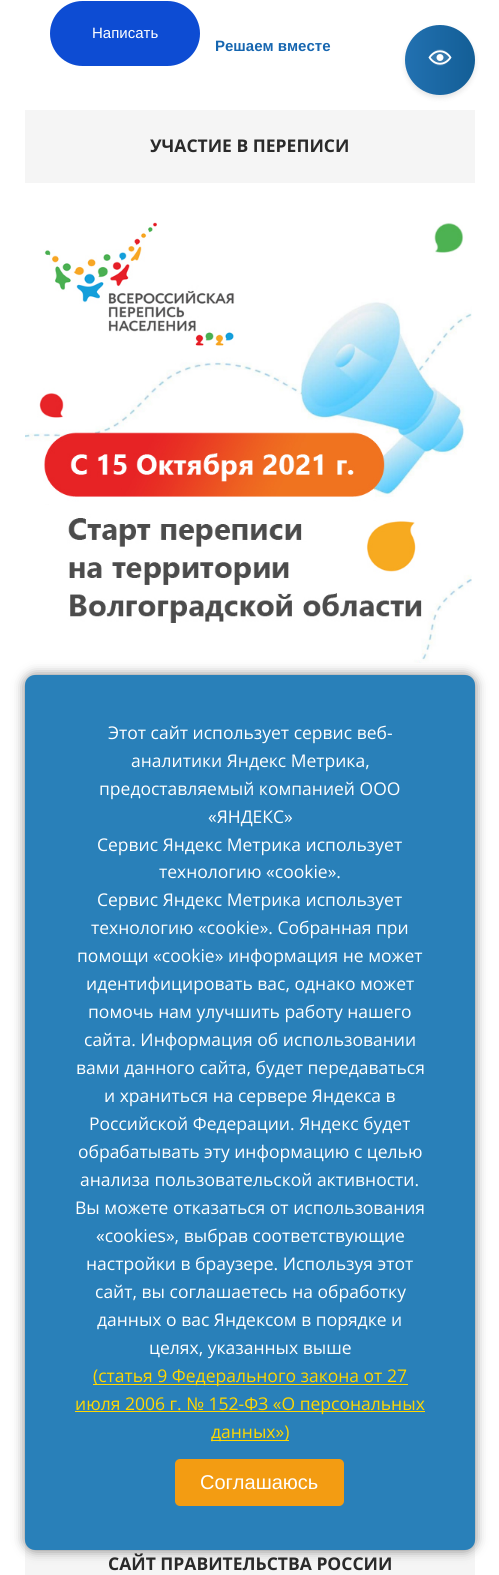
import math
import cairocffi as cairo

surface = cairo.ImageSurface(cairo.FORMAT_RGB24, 499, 1575)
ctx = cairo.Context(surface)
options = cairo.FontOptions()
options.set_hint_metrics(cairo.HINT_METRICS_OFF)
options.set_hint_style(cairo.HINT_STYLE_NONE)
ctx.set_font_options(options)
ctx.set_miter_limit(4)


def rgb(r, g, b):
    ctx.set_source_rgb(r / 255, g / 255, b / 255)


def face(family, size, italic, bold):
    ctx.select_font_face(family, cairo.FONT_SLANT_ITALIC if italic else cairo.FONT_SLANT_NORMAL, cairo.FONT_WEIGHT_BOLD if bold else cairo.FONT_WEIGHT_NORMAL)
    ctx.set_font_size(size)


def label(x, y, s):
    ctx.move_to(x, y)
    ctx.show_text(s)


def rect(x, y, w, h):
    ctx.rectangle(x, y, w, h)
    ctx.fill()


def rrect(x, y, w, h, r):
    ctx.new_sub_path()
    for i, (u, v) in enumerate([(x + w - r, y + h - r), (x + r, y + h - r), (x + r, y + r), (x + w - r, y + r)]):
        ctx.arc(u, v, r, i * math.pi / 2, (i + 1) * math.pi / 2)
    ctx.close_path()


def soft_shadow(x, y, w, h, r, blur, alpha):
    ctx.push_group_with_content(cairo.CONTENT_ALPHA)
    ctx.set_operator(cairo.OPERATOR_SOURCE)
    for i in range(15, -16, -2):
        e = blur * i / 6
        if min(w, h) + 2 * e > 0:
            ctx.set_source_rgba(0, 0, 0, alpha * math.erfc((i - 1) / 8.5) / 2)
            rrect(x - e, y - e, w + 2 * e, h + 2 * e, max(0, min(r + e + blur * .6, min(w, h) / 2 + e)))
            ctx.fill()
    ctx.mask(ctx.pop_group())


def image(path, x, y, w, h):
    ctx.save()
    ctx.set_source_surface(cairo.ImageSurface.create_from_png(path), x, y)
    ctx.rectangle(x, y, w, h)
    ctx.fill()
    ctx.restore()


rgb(255, 255, 255)
ctx.paint()
rgb(13, 76, 211)
rrect(50, 1, 150, 65, 32.5)
ctx.fill()
face('Liberation Sans', 15, 0, 0)
rgb(255, 255, 255)
label(92, 38, 'Написать')
face('Liberation Sans', 15, 0, 1)
rgb(22, 102, 176)
label(215, 51, 'Решаем вместе')
rgb(245, 245, 245)
rect(25, 110, 450, 73)
face('Open Sans', 17.5, 0, 1)
rgb(42, 42, 42)
label(150, 152, 'УЧАСТИЕ В ПЕРЕПИСИ')
image('image0.png', 25, 222, 447, 441)
rgb(245, 245, 245)
rect(25, 1540, 450, 35)
rgb(42, 42, 42)
label(108, 1570, 'САЙТ ПРАВИТЕЛЬСТВА РОССИИ')
rgb(0, 0, 0)
soft_shadow(25, 675, 450, 875, 10, 6, 0.5)
rgb(41, 128, 185)
rrect(25, 675, 450, 875, 10)
ctx.fill()
face('Open Sans', 17.5, 0, 0)
rgb(255, 255, 255)
label(108, 739, 'Этот сайт использует сервис веб-')
label(131, 767, 'аналитики Яндекс Метрика,')
label(99, 795, 'предоставляемый компанией ООО')
label(208, 823, '«ЯНДЕКС»')
label(97, 851, 'Сервис Яндекс Метрика использует')
label(159, 878, 'технологию «cookie».')
label(97, 906, 'Сервис Яндекс Метрика использует')
label(91, 934, 'технологию «cookie». Собранная при')
label(77, 962, 'помощи «cookie» информация не может')
label(86, 990, 'идентифицировать вас, однако может')
label(88, 1018, 'помочь нам улучшить работу нашего')
label(84, 1046, 'сайта. Информация об использовании')
label(76, 1074, 'вами данного сайта, будет передаваться')
label(104, 1102, 'и храниться на сервере Яндекса в')
label(89, 1130, 'Российской Федерации. Яндекс будет')
label(78, 1158, 'обрабатывать эту информацию с целью')
label(80, 1186, 'анализа пользовательской активности.')
label(75, 1214, 'Вы можете отказаться от использования')
label(96, 1242, '«cookies», выбрав соответствующие')
label(86, 1270, 'настройки в браузере. Используя этот')
label(95, 1298, 'сайт, вы соглашаетесь на обработку')
label(97, 1326, 'данных о вас Яндексом в порядке и')
label(149, 1354, 'целях, указанных выше')
rgb(255, 215, 0)
rect(93, 1384, 315, 1)
label(93, 1382, '(статья 9 Федерального закона от 27')
rect(75, 1411, 350, 1)
label(75, 1410, 'июля 2006 г. № 152-ФЗ «О персональных')
rect(211, 1440, 78, 1)
label(211, 1438, 'данных»)')
rgb(243, 156, 18)
rrect(175, 1459, 169, 47, 5)
ctx.fill()
face('Liberation Sans', 20, 0, 0)
rgb(255, 255, 255)
label(200, 1489, 'Соглашаюсь')
rgb(0, 0, 0)
soft_shadow(405, 28, 70, 70, 35, 2.5, 0.1)
gradient = cairo.LinearGradient(405, 60, 475, 60)
gradient.add_color_stop_rgba(0, 0.133, 0.443, 0.694, 1)
gradient.add_color_stop_rgba(1, 0.075, 0.369, 0.588, 1)
ctx.set_source(gradient)
ctx.arc(440, 60, 35, 0, 2 * math.pi)
ctx.fill()
image('image1.png', 428, 49, 24, 17)
surface.write_to_png('render.png')
